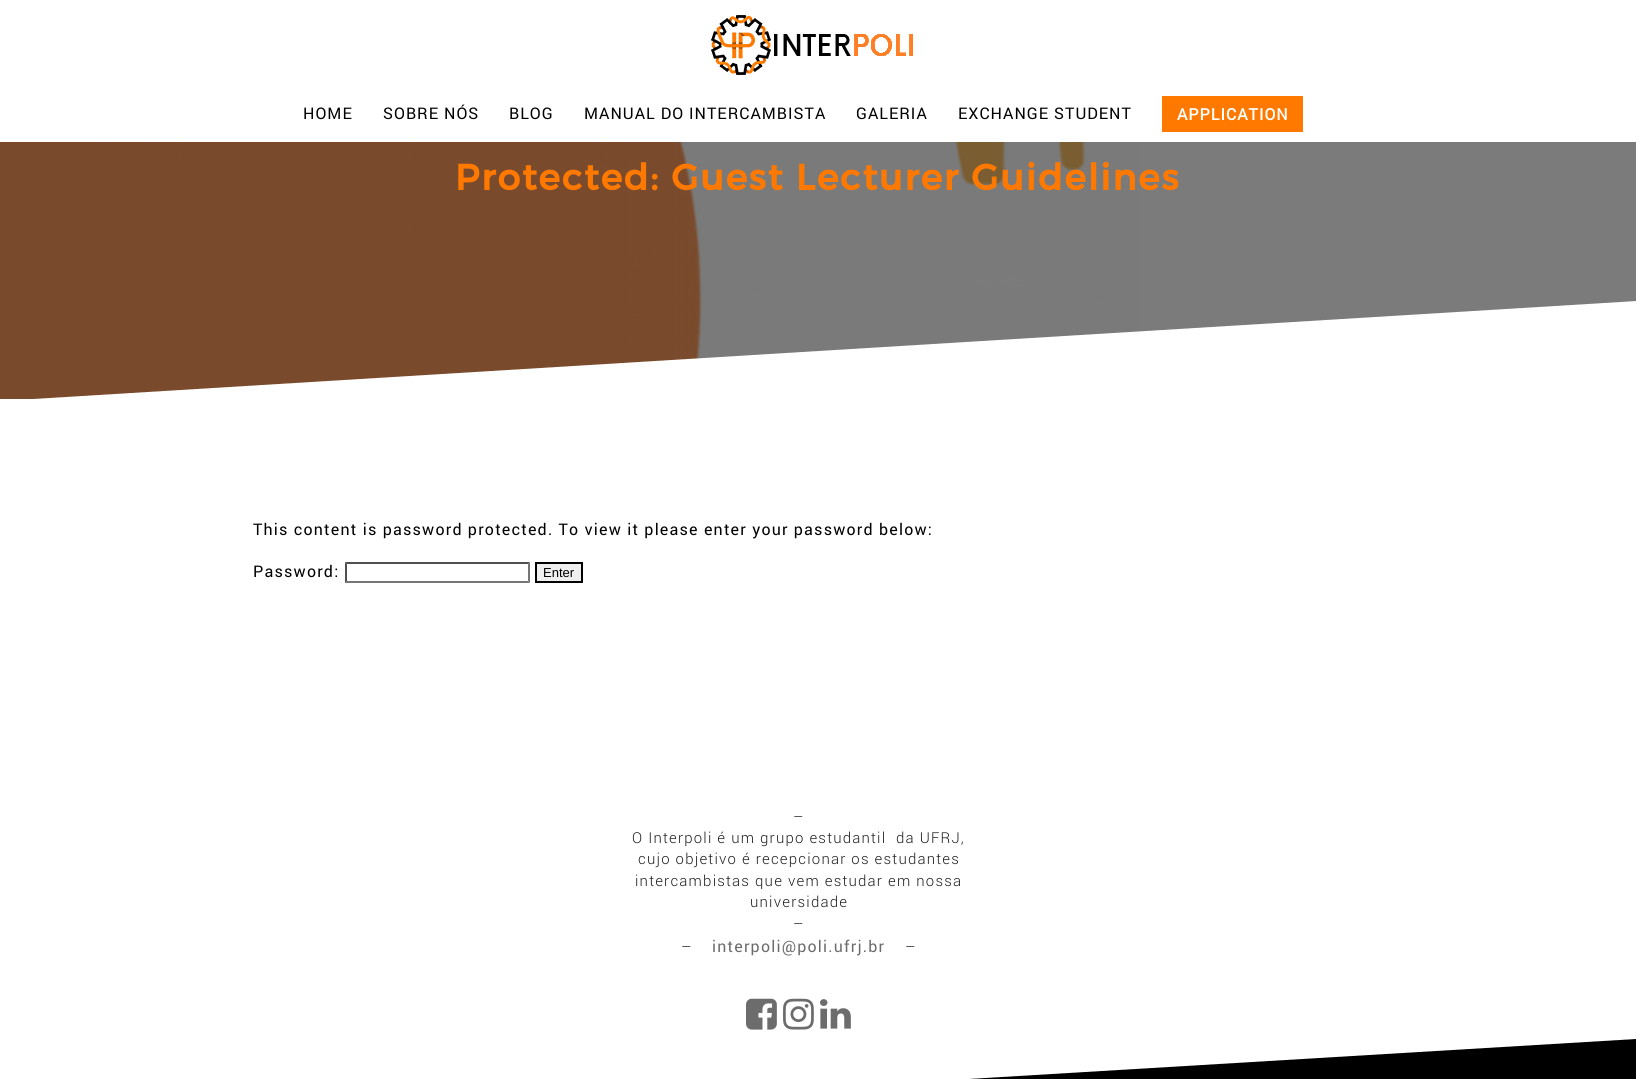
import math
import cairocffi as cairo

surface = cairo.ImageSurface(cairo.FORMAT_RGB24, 1636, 1079)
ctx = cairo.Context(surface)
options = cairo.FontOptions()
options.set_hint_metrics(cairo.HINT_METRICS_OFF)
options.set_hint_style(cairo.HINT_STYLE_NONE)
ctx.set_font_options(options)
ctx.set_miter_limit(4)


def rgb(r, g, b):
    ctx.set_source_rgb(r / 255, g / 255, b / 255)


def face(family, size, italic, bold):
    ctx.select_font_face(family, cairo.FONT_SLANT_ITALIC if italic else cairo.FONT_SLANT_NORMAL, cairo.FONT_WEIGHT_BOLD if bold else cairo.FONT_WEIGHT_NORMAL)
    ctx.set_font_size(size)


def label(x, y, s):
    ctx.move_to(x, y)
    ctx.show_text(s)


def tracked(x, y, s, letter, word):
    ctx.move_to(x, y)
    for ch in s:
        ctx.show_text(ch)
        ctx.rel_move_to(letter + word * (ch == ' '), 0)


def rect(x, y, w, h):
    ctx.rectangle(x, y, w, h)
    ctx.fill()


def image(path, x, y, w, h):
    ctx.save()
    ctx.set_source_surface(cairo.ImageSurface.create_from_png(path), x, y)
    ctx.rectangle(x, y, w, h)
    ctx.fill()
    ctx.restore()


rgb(255, 255, 255)
ctx.paint()
rgb(123, 123, 123)
rect(1137, 142, 499, 190)
image('image0.png', 711, 15, 202, 60)
face('Roboto', 16, 0, 0)
rgb(0, 0, 0)
tracked(303, 119, 'HOME', 1, 0)
tracked(383, 119, 'SOBRE NÓS', 1, 0)
tracked(509, 119, 'BLOG', 1, 0)
tracked(584, 119, 'MANUAL DO INTERCAMBISTA', 1, 0)
tracked(856, 119, 'GALERIA', 1, 0)
tracked(958, 119, 'EXCHANGE STUDENT', 1, 0)
rgb(255, 121, 0)
rect(1162, 96, 141, 36)
face('Roboto', 16, 0, 1)
rgb(255, 255, 255)
tracked(1177, 120, 'APPLICATION', 1, 0)
image('image1.png', 0, 142, 1137, 257)
face('Montserrat', 36, 0, 1)
rgb(255, 121, 0)
tracked(455, 190, 'Protected: Guest Lecturer Guidelines', 2, 0)
rgb(255, 255, 255)
ctx.new_path()
ctx.move_to(0, 401)
ctx.line_to(1636, 401)
ctx.line_to(1636, 399)
ctx.line_to(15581, -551)
ctx.close_path()
ctx.fill()
face('Roboto', 16, 0, 0)
rgb(0, 0, 0)
tracked(253, 535, 'This content is password protected. To view it please enter your password below:', 1.2, 0)
tracked(253, 577, 'Password:', 1.2, 0)
rgb(79, 79, 79)
ctx.new_path()
ctx.move_to(345, 562)
ctx.line_to(530, 562)
ctx.line_to(528, 564)
ctx.line_to(347, 564)
ctx.close_path()
ctx.fill()
rgb(118, 118, 118)
ctx.new_path()
ctx.move_to(530, 562)
ctx.line_to(530, 583)
ctx.line_to(528, 581)
ctx.line_to(528, 564)
ctx.close_path()
ctx.fill()
ctx.new_path()
ctx.move_to(530, 583)
ctx.line_to(345, 583)
ctx.line_to(347, 581)
ctx.line_to(528, 581)
ctx.close_path()
ctx.fill()
rgb(79, 79, 79)
ctx.new_path()
ctx.move_to(345, 583)
ctx.line_to(345, 562)
ctx.line_to(347, 564)
ctx.line_to(347, 581)
ctx.close_path()
ctx.fill()
rgb(239, 239, 239)
ctx.rectangle(536, 563, 46, 19)
ctx.fill_preserve()
rgb(0, 0, 0)
ctx.stroke()
face('Liberation Sans', 13, 0, 0)
label(543, 577, 'Enter')
face('Roboto Light', 15, 0, 0)
rgb(31, 31, 31)
tracked(793, 822, '–', 1.2, 0)
tracked(632, 843, 'O Interpoli é um grupo estudantil  da UFRJ,', 1.2, 0)
tracked(638, 864, 'cujo objetivo é recepcionar os estudantes', 1.2, 0)
tracked(635, 886, 'intercambistas que vem estudar em nossa', 1.2, 0)
tracked(750, 907, 'universidade', 1.2, 0)
tracked(793, 929, '–', 1.2, 0)
tracked(681, 952, '–', 1.2, 0)
face('Roboto', 16, 0, 0)
rgb(108, 108, 108)
tracked(712, 952, 'interpoli@poli.ufrj.br', 1.2, 0)
face('Roboto Light', 15, 0, 0)
rgb(31, 31, 31)
tracked(905, 952, '–', 1.2, 0)
image('image2.png', 746, 998, 31, 32)
image('image3.png', 783, 998, 31, 32)
image('image4.png', 820, 999, 31, 30)
rgb(0, 0, 0)
ctx.new_path()
ctx.move_to(0, 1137)
ctx.line_to(1636, 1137)
ctx.line_to(1636, 1039)
ctx.close_path()
ctx.fill()
surface.write_to_png('render.png')
